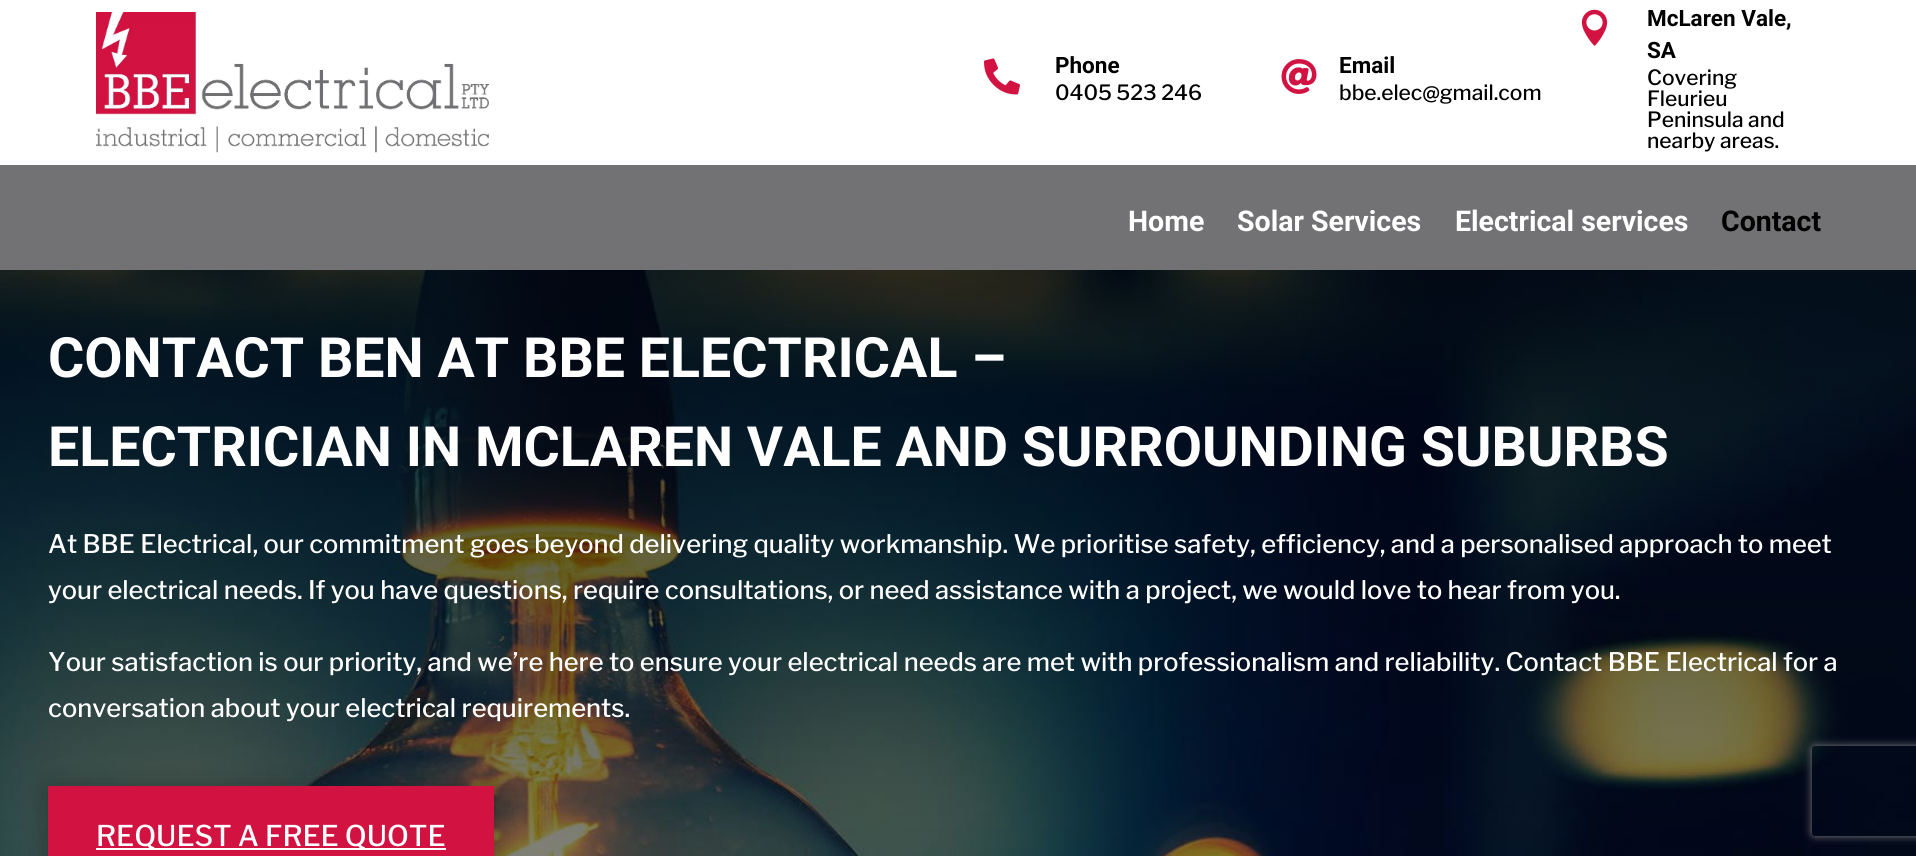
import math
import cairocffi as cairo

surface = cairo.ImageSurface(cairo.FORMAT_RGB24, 1916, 856)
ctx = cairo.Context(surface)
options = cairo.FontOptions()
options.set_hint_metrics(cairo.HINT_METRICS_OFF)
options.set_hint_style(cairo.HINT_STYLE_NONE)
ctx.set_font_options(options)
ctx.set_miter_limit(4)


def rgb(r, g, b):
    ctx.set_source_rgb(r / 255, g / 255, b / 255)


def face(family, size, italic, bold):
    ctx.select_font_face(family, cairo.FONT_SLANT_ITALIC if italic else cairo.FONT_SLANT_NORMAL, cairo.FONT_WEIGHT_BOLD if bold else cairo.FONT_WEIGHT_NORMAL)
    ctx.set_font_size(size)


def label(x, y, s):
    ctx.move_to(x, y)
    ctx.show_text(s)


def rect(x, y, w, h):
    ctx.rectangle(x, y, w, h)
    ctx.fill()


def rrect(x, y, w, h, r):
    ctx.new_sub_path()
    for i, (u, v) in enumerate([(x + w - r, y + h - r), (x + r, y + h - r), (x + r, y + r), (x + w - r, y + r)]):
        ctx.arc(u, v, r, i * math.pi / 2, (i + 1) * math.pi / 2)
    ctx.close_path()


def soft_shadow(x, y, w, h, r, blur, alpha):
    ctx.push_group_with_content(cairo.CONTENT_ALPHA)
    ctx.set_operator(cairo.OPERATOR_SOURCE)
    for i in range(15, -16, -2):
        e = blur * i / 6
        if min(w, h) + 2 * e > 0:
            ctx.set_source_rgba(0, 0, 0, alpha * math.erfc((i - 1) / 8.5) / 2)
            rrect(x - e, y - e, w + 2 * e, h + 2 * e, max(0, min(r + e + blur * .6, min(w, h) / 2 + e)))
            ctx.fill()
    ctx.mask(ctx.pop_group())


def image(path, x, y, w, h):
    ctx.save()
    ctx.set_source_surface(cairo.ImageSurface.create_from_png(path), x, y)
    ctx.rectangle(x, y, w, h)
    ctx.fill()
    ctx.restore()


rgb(255, 255, 255)
ctx.paint()
image('image0.png', 96, 12, 393, 141)
image('image1.png', 984, 58, 36, 37)
face('Roboto', 22.5, 0, 1)
rgb(0, 0, 0)
label(1055, 73, 'Phone')
face('Libre Franklin Medium', 21, 0, 0)
label(1055, 100, '0405 523 246')
image('image2.png', 1281, 59, 36, 35)
face('Roboto', 22.5, 0, 1)
label(1339, 73, 'Email')
face('Libre Franklin Medium', 21, 0, 0)
label(1339, 100, 'bbe.elec@gmail.com')
image('image3.png', 1581, 9, 27, 37)
face('Roboto', 22.5, 0, 1)
label(1647, 26, 'McLaren Vale,')
label(1647, 58, 'SA')
face('Libre Franklin Medium', 21, 0, 0)
label(1647, 85, 'Covering')
label(1647, 106, 'Fleurieu')
label(1647, 127, 'Peninsula and')
label(1647, 148, 'nearby areas.')
rgb(114, 114, 116)
rect(0, 165, 1916, 105)
face('Roboto', 28.5, 0, 1)
rgb(255, 255, 255)
label(1128, 231, 'Home')
label(1237, 231, 'Solar Services')
label(1455, 231, 'Electrical services')
rgb(0, 0, 0)
label(1721, 231, 'Contact')
image('image4.png', 0, 270, 1916, 586)
face('Roboto', 55.5, 0, 1)
rgb(255, 255, 255)
label(48, 377, 'CONTACT BEN AT BBE ELECTRICAL –')
label(48, 466, 'ELECTRICIAN IN MCLAREN VALE AND SURROUNDING SUBURBS')
face('Libre Franklin Medium', 25.5, 0, 0)
label(48, 553, 'At BBE Electrical, our commitment goes beyond delivering quality workmanship. We prioritise safety, efficiency, and a personalised approach to meet')
label(48, 599, 'your electrical needs. If you have questions, require consultations, or need assistance with a project, we would love to hear from you.')
label(48, 671, 'Your satisfaction is our priority, and we’re here to ensure your electrical needs are met with professionalism and reliability. Contact BBE Electrical for a')
label(48, 717, 'conversation about your electrical requirements.')
rgb(0, 0, 0)
soft_shadow(48, 789, 446, 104, 0, 13.5, 0.3)
rgb(210, 18, 65)
rect(48, 786, 446, 70)
rgb(255, 255, 255)
rect(96, 848, 350, 2)
face('Libre Franklin Medium', 28.5, 0, 0)
label(96, 846, 'REQUEST A FREE QUOTE')
ctx.save()
ctx.set_fill_rule(cairo.FILL_RULE_EVEN_ODD)
ctx.new_path()
ctx.move_to(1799, 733)
ctx.line_to(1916, 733)
ctx.line_to(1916, 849)
ctx.line_to(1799, 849)
ctx.close_path()
ctx.move_to(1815, 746)
ctx.line_to(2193, 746)
ctx.curve_to(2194.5, 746, 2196, 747.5, 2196, 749)
ctx.line_to(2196, 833)
ctx.curve_to(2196, 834.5, 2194.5, 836, 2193, 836)
ctx.line_to(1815, 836)
ctx.curve_to(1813.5, 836, 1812, 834.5, 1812, 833)
ctx.line_to(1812, 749)
ctx.curve_to(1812, 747.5, 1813.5, 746, 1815, 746)
ctx.close_path()
ctx.clip()
rgb(128, 128, 128)
soft_shadow(1812, 746, 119, 90, 3, 4, 1)
ctx.restore()
surface.write_to_png('render.png')
